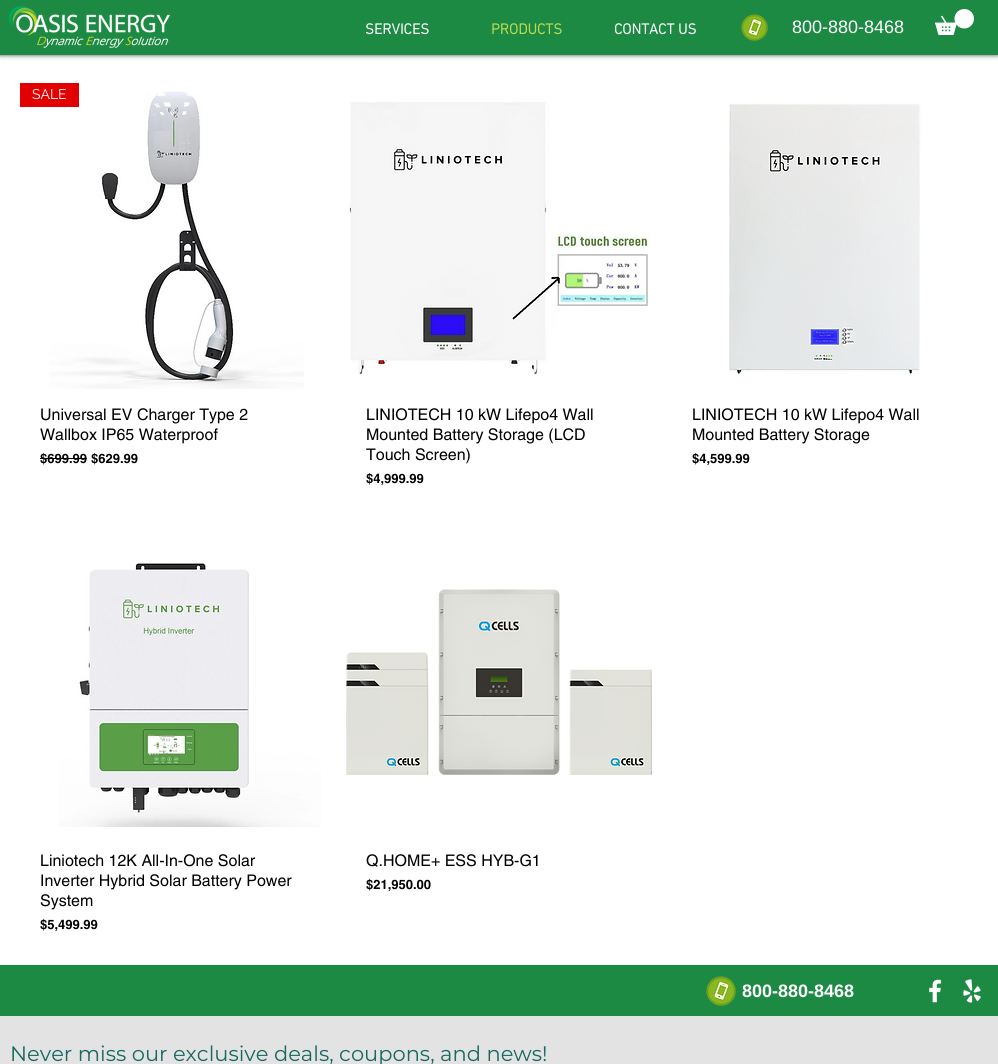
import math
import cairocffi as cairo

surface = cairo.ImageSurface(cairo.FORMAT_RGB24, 998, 1064)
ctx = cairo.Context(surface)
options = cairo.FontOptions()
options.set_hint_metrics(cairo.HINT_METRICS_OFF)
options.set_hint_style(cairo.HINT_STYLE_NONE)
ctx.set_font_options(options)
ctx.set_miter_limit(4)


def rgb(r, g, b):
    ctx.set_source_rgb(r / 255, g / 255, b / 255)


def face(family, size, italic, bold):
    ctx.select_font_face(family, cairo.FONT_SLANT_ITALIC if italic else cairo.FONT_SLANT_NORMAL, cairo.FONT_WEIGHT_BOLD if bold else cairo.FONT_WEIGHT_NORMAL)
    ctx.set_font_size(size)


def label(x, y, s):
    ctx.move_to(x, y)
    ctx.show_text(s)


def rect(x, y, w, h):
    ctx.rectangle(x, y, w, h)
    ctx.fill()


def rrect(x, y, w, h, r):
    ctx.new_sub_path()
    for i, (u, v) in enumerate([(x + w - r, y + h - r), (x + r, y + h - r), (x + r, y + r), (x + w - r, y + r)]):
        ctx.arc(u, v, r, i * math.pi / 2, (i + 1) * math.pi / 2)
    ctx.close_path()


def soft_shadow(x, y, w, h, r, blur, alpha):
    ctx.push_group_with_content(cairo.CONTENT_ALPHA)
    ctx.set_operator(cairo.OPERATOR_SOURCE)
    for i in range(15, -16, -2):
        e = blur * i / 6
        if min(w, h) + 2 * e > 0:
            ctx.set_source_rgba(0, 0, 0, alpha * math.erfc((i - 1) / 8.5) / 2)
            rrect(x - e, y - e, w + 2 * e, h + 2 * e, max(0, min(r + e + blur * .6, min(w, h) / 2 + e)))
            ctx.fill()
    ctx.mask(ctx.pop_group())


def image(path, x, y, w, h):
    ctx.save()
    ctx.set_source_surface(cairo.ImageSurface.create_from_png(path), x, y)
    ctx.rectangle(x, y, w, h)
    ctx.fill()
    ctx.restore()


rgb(255, 255, 255)
ctx.paint()
rgb(0, 0, 0)
soft_shadow(0, 0, 998, 55, 0, 2.5, 0.7)
rgb(28, 138, 67)
rect(0, 0, 998, 55)
image('image0.png', 9, 6, 162, 42)
face('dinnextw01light', 15, 0, 1)
rgb(255, 255, 255)
label(365, 34, 'SERVICES')
rgb(186, 218, 85)
label(491, 34, 'PRODUCTS')
rgb(255, 255, 255)
label(614, 34, 'CONTACT US')
image('image1.png', 741, 14, 27, 27)
face('Liberation Sans', 18, 0, 0)
label(792, 33, '800-880-8468')
image('image2.png', 935, 9, 39, 26)
image('image3.png', 49, 91, 255, 298)
rgb(227, 0, 0)
rect(20, 83, 59, 24)
face('Raleway', 14, 0, 0)
rgb(255, 255, 255)
label(32, 99, 'SALE')
face('helvetica', 16, 0, 0)
rgb(0, 0, 0)
label(40, 420, 'Universal EV Charger Type 2')
label(40, 440, 'Wallbox IP65 Waterproof')
face('helvetica', 13, 0, 1)
label(40, 463, '$699.99')
rect(40, 458, 47, 1)
label(91, 463, '$629.99')
image('image4.png', 349, 102, 301, 273)
face('helvetica', 16, 0, 0)
label(366, 420, 'LINIOTECH 10 kW Lifepo4 Wall')
label(366, 440, 'Mounted Battery Storage (LCD')
label(366, 460, 'Touch Screen)')
face('helvetica', 13, 0, 1)
label(366, 483, '$4,999.99')
image('image5.png', 729, 89, 249, 287)
face('helvetica', 16, 0, 0)
label(692, 420, 'LINIOTECH 10 kW Lifepo4 Wall')
label(692, 440, 'Mounted Battery Storage')
face('helvetica', 13, 0, 1)
label(692, 463, '$4,599.99')
image('image6.png', 59, 562, 262, 265)
face('helvetica', 16, 0, 0)
label(40, 866, 'Liniotech 12K All-In-One Solar')
label(40, 886, 'Inverter Hybrid Solar Battery Power')
label(40, 906, 'System')
face('helvetica', 13, 0, 1)
label(40, 929, '$5,499.99')
image('image7.png', 346, 589, 306, 186)
face('helvetica', 16, 0, 0)
label(366, 866, 'Q.HOME+ ESS HYB-G1')
face('helvetica', 13, 0, 1)
label(366, 889, '$21,950.00')
rgb(28, 138, 67)
rect(0, 965, 998, 51)
image('image8.png', 706, 976, 30, 30)
face('Liberation Sans', 18, 0, 1)
rgb(255, 255, 255)
label(742, 997, '800-880-8468')
image('image9.png', 929, 979, 13, 24)
image('image10.png', 963, 979, 18, 24)
rgb(227, 227, 227)
rect(0, 1016, 998, 48)
face('Montserrat', 21, 0, 0)
rgb(24, 105, 97)
label(10, 1061, 'Never miss our exclusive deals, coupons, and news!')
surface.write_to_png('render.png')
